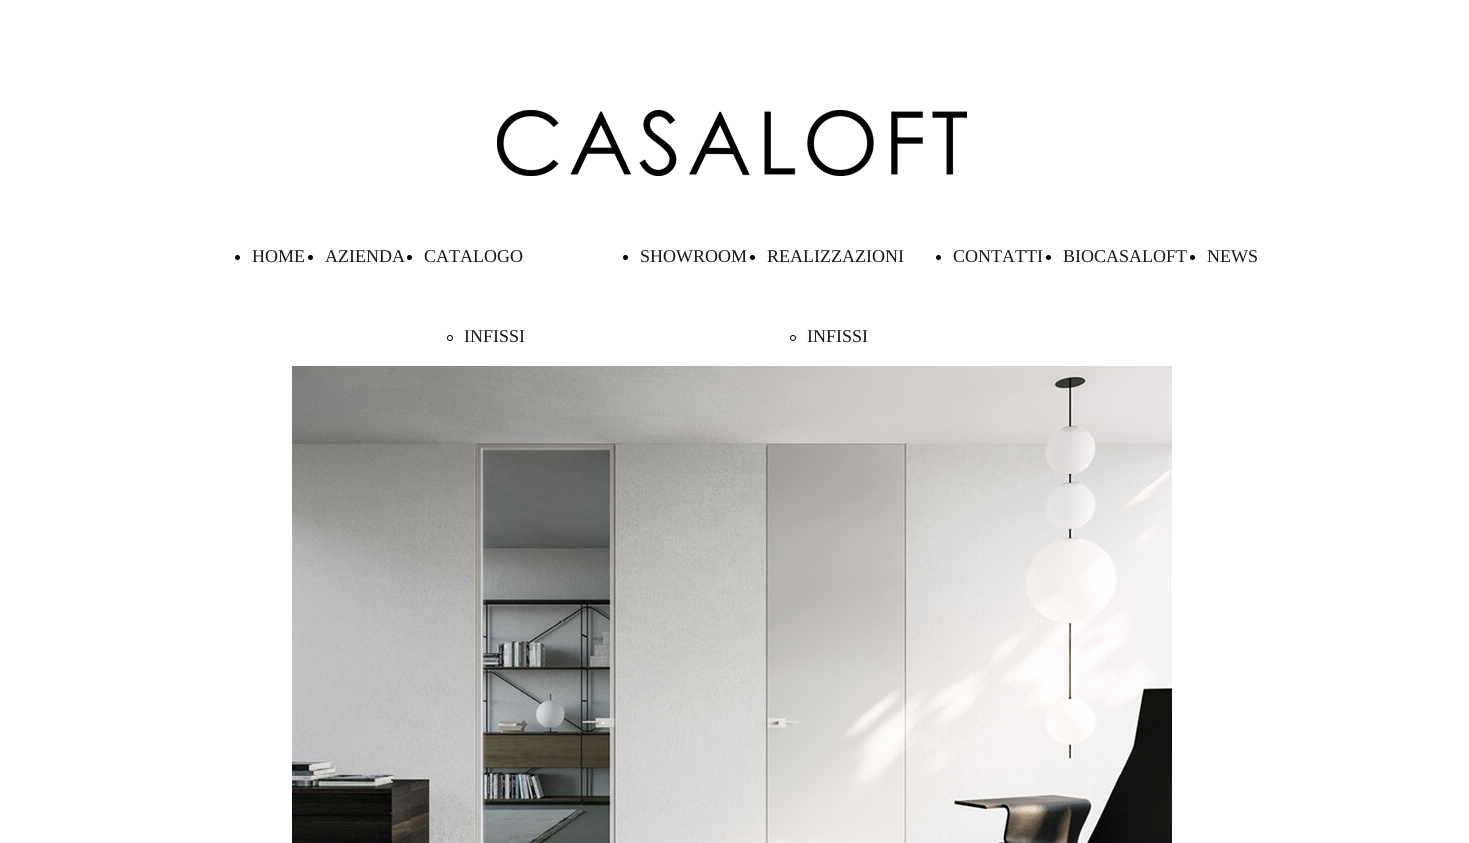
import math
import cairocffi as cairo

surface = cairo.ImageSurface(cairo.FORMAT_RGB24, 1469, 843)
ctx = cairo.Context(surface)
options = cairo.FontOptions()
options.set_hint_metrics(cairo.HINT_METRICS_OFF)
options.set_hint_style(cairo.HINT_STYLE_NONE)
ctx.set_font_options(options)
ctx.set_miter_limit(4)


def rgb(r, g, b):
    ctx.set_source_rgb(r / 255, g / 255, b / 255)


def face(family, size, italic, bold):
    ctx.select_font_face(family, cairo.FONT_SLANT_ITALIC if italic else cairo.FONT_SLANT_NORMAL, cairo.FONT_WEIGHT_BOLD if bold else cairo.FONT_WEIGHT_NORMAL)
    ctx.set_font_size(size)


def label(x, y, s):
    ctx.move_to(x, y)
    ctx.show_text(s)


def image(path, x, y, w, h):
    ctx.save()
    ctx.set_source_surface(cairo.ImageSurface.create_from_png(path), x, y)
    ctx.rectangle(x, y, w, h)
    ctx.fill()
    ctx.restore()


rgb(255, 255, 255)
ctx.paint()
image('image0.png', 497, 110, 470, 66)
rgb(0, 0, 0)
ctx.arc(237.5, 257.5, 2.5, 0, 2 * math.pi)
ctx.fill()
face('Liberation Serif', 18, 0, 0)
rgb(21, 22, 22)
label(252, 262, 'HOME')
rgb(0, 0, 0)
ctx.new_path()
ctx.arc(310.5, 257.5, 2.5, 0, 2 * math.pi)
ctx.fill()
rgb(21, 22, 22)
label(325, 262, 'AZIENDA')
rgb(0, 0, 0)
ctx.new_path()
ctx.arc(409.5, 257.5, 2.5, 0, 2 * math.pi)
ctx.fill()
rgb(21, 22, 22)
label(424, 262, 'CATALOGO')
ctx.new_path()
ctx.arc(450, 338, 2.5, 0, 2 * math.pi)
rgb(0, 0, 0)
ctx.set_line_width(1)
ctx.stroke()
rgb(21, 22, 22)
label(464, 342, 'INFISSI')
rgb(0, 0, 0)
ctx.new_path()
ctx.arc(625.5, 257.5, 2.5, 0, 2 * math.pi)
ctx.fill()
rgb(21, 22, 22)
label(640, 262, 'SHOWROOM')
rgb(0, 0, 0)
ctx.new_path()
ctx.arc(752.5, 257.5, 2.5, 0, 2 * math.pi)
ctx.fill()
rgb(21, 22, 22)
label(767, 262, 'REALIZZAZIONI')
ctx.new_path()
ctx.arc(793, 338, 2.5, 0, 2 * math.pi)
rgb(0, 0, 0)
ctx.stroke()
rgb(21, 22, 22)
label(807, 342, 'INFISSI')
rgb(0, 0, 0)
ctx.new_path()
ctx.arc(938.5, 257.5, 2.5, 0, 2 * math.pi)
ctx.fill()
rgb(21, 22, 22)
label(953, 262, 'CONTATTI')
rgb(0, 0, 0)
ctx.new_path()
ctx.arc(1048.5, 257.5, 2.5, 0, 2 * math.pi)
ctx.fill()
rgb(21, 22, 22)
label(1063, 262, 'BIOCASALOFT')
rgb(0, 0, 0)
ctx.new_path()
ctx.arc(1192.5, 257.5, 2.5, 0, 2 * math.pi)
ctx.fill()
rgb(21, 22, 22)
label(1207, 262, 'NEWS')
image('image1.png', 292, 366, 880, 477)
surface.write_to_png('render.png')
